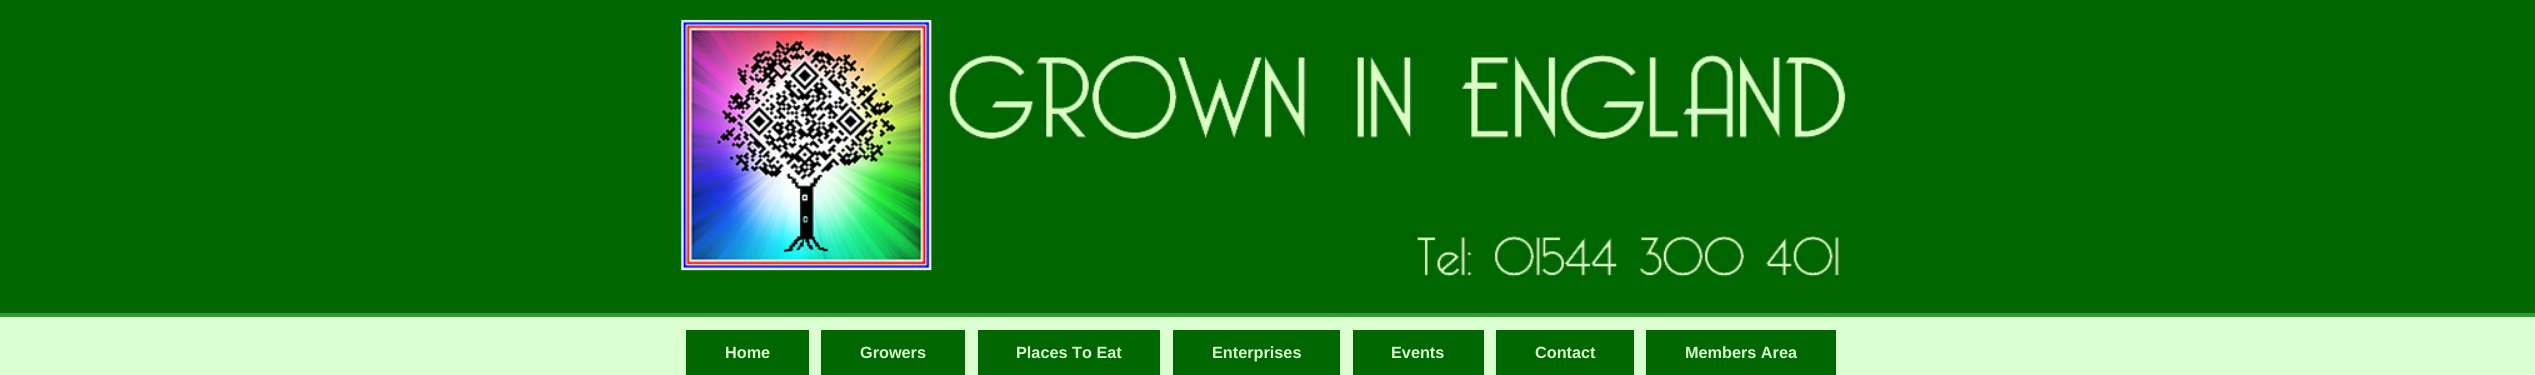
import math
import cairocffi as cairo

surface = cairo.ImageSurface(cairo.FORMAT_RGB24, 2535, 375)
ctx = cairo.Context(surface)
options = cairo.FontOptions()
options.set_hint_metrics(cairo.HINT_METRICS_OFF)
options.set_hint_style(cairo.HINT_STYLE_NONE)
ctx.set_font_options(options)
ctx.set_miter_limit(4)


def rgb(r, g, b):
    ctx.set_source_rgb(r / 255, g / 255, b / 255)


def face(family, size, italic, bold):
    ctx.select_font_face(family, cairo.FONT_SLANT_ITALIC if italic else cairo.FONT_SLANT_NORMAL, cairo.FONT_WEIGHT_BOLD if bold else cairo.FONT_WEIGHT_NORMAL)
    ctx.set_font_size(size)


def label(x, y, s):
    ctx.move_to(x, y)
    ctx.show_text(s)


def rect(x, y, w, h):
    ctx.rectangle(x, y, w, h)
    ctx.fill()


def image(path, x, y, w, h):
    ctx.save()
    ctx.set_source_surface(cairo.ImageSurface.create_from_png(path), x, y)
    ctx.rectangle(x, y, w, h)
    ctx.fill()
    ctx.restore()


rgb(219, 255, 208)
ctx.paint()
rgb(0, 102, 0)
rect(0, 0, 2535, 313)
rgb(53, 153, 51)
rect(0, 313, 2535, 4)
image('image0.png', 681, 19, 1165, 258)
rgb(0, 102, 0)
rect(686, 330, 123, 45)
face('Liberation Sans', 16.25, 0, 1)
rgb(219, 255, 208)
label(725, 358, 'Home')
rgb(0, 102, 0)
rect(821, 330, 144, 45)
rgb(219, 255, 208)
label(860, 358, 'Growers')
rgb(0, 102, 0)
rect(978, 330, 182, 45)
rgb(219, 255, 208)
label(1016, 358, 'Places To Eat')
rgb(0, 102, 0)
rect(1173, 330, 167, 45)
rgb(219, 255, 208)
label(1212, 358, 'Enterprises')
rgb(0, 102, 0)
rect(1353, 330, 131, 45)
rgb(219, 255, 208)
label(1391, 358, 'Events')
rgb(0, 102, 0)
rect(1496, 330, 138, 45)
rgb(219, 255, 208)
label(1535, 358, 'Contact')
rgb(0, 102, 0)
rect(1646, 330, 190, 45)
rgb(219, 255, 208)
label(1685, 358, 'Members Area')
surface.write_to_png('render.png')
